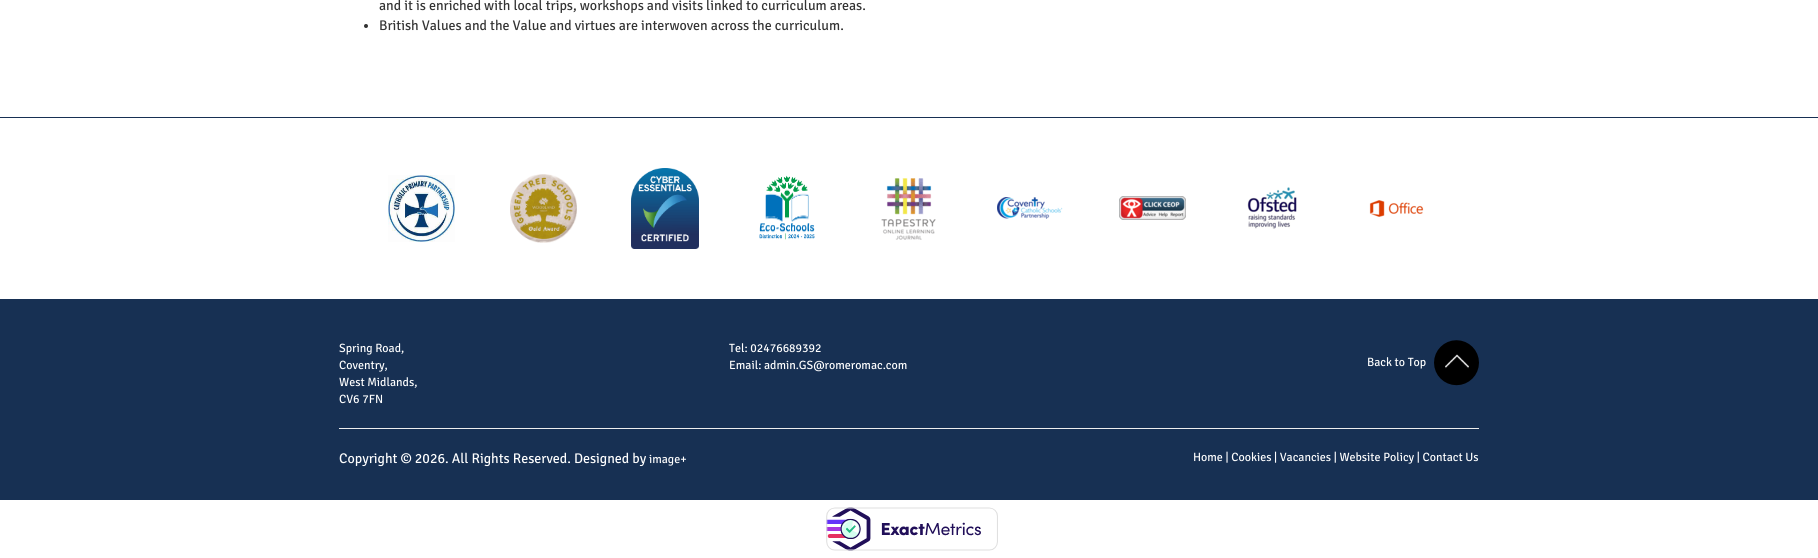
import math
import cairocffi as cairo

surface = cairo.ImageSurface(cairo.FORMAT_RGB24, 1818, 558)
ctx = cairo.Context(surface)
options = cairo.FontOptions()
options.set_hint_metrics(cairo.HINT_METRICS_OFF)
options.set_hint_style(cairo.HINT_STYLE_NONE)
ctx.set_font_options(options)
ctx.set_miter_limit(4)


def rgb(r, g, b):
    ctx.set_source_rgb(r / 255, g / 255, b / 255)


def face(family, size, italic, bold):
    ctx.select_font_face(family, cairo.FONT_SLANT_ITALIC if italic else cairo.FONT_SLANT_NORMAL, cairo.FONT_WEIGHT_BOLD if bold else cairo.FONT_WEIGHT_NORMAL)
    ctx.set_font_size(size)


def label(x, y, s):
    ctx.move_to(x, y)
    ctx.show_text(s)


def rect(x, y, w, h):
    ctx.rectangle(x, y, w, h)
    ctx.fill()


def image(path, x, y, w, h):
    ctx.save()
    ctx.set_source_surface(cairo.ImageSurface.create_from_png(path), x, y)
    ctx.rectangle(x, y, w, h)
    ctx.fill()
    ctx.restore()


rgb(255, 255, 255)
ctx.paint()
face('Signika Negative', 14, 0, 0)
rgb(51, 51, 51)
label(379, 10, 'and it is enriched with local trips, workshops and visits linked to curriculum areas.')
ctx.new_path()
ctx.arc(366, 26, 2, 0, 2 * math.pi)
ctx.fill()
label(379, 30, 'British Values and the Value and virtues are interwoven across the curriculum.')
rgb(23, 48, 83)
rect(0, 117, 1818, 1)
image('image0.png', 388, 175, 67, 67)
image('image1.png', 510, 174, 67, 69)
image('image2.png', 631, 168, 68, 81)
image('image3.png', 759, 175, 56, 65)
image('image4.png', 881, 178, 55, 62)
image('image5.png', 997, 197, 66, 22)
image('image6.png', 1119, 196, 67, 24)
image('image7.png', 1247, 187, 50, 42)
image('image8.png', 1369, 200, 55, 17)
rect(0, 299, 1818, 201)
face('Signika Negative', 12, 0, 0)
rgb(255, 255, 255)
label(339, 352, 'Spring Road,')
label(339, 369, 'Coventry,')
label(339, 386, 'West Midlands,')
label(339, 403, 'CV6 7FN')
label(729, 352, 'Tel: 02476689392')
label(729, 369, 'Email: admin.GS@romeromac.com')
label(1367, 366, 'Back to Top')
image('image9.png', 1434, 340, 45, 46)
rgb(238, 238, 238)
rect(339, 428, 1140, 1)
face('Signika Negative', 14, 0, 0)
rgb(255, 255, 255)
label(339, 463, 'Copyright © 2026. All Rights Reserved. Designed by')
face('Signika Negative', 12, 0, 0)
label(649, 463, 'image+')
label(1193, 461, 'Home | Cookies | Vacancies | Website Policy | Contact Us')
image('image10.png', 826, 507, 172, 44)
surface.write_to_png('render.png')
